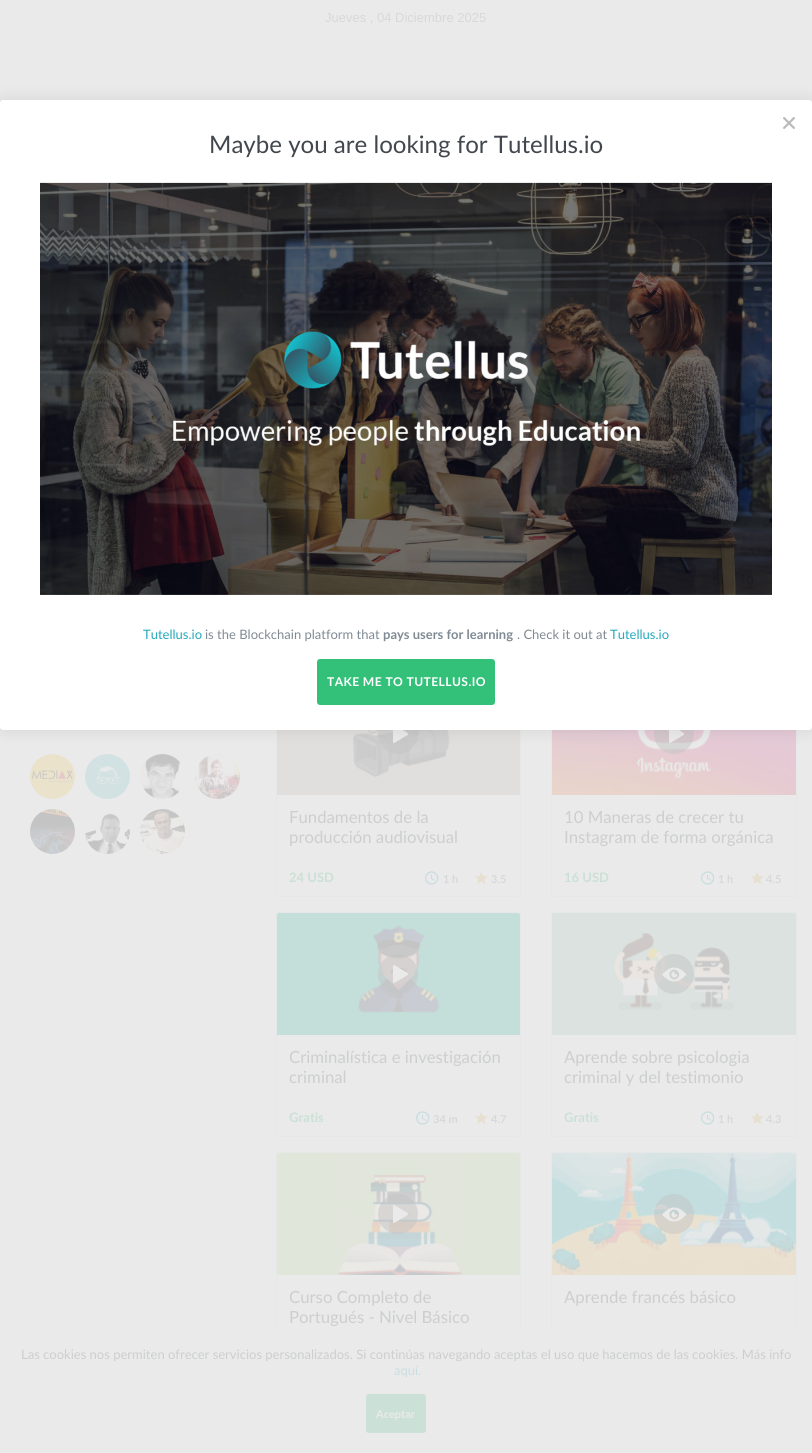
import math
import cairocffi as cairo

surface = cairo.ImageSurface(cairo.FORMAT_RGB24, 812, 1453)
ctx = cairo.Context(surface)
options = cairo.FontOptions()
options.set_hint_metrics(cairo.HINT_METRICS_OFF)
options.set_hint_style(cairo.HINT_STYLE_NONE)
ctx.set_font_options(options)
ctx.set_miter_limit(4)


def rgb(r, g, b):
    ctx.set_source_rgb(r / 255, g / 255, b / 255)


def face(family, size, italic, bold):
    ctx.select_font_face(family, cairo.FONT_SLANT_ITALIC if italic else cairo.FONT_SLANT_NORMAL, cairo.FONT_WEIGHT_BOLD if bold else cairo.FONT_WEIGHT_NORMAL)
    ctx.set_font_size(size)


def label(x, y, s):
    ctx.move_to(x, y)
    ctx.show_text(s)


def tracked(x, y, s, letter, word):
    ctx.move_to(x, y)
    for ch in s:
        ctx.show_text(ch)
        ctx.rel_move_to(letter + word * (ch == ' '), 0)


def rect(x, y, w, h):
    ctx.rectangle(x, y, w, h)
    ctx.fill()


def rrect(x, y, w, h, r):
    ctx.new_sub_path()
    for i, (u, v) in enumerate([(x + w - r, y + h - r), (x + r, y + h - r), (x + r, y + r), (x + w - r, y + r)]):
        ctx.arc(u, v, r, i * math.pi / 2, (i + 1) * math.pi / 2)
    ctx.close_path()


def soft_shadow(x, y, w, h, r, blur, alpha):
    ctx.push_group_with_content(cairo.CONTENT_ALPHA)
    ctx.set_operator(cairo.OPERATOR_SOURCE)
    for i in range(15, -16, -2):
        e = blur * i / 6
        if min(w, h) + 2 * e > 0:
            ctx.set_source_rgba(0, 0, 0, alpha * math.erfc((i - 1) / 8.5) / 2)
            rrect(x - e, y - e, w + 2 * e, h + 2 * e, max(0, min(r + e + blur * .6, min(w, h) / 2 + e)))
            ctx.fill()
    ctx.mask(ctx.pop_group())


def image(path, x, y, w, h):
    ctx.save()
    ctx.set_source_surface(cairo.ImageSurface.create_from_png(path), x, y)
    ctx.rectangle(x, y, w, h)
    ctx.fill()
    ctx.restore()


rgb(234, 234, 234)
ctx.paint()
face('Liberation Sans', 13, 0, 0)
rgb(215, 216, 218)
label(325, 22, 'Jueves , 04 Diciembre 2025')
image('image0.png', 30, 754, 45, 45)
image('image1.png', 85, 754, 45, 45)
image('image2.png', 140, 754, 41, 45)
image('image3.png', 195, 754, 45, 45)
image('image4.png', 30, 809, 45, 45)
image('image5.png', 85, 813, 45, 41)
image('image6.png', 140, 809, 45, 45)
rrect(276.5, 672.5, 244, 224, 2.5)
rgb(230, 231, 231)
ctx.set_line_width(1)
ctx.stroke()
image('image7.png', 277, 730, 243, 65)
ctx.set_source_rgba(0.769, 0.769, 0.769, 0.5)
ctx.arc(398, 734, 20, 0, 2 * math.pi)
ctx.fill()
image('image8.png', 393, 730, 15, 13)
face('Lato', 16.75, 0, 0)
rgb(205, 206, 207)
label(289, 823, 'Fundamentos de la')
label(289, 843, 'producción audiovisual')
face('Lato', 13, 0, 1)
rgb(203, 224, 214)
label(289, 882, '24 USD')
image('image9.png', 425, 871, 14, 14)
face('Lato', 11, 0, 1)
rgb(215, 216, 218)
label(443, 883, '1 h')
image('image10.png', 475, 872, 13, 12)
label(491, 883, '3.5')
rrect(551.5, 672.5, 245, 224, 2.5)
rgb(230, 231, 231)
ctx.stroke()
image('image11.png', 552, 730, 244, 65)
ctx.set_source_rgba(0.769, 0.769, 0.769, 0.5)
ctx.arc(674, 734, 20, 0, 2 * math.pi)
ctx.fill()
image('image12.png', 669, 730, 15, 13)
face('Lato', 16.75, 0, 0)
rgb(205, 206, 207)
label(564, 823, '10 Maneras de crecer tu')
label(564, 843, 'Instagram de forma orgánica')
face('Lato', 13, 0, 1)
rgb(203, 224, 214)
label(564, 882, '16 USD')
image('image9.png', 701, 871, 14, 14)
face('Lato', 11, 0, 1)
rgb(215, 216, 218)
label(718, 883, '1 h')
image('image10.png', 751, 872, 13, 12)
label(766, 883, '4.5')
rrect(276.5, 912.5, 244, 224, 2.5)
rgb(230, 231, 231)
ctx.stroke()
image('image13.png', 277, 913, 243, 122)
ctx.set_source_rgba(0.769, 0.769, 0.769, 0.5)
ctx.arc(398, 974, 20, 0, 2 * math.pi)
ctx.fill()
image('image14.png', 393, 965, 15, 18)
face('Lato', 16.75, 0, 0)
rgb(205, 206, 207)
label(289, 1063, 'Criminalística e investigación')
label(289, 1083, 'criminal')
face('Lato', 13, 0, 1)
rgb(203, 224, 214)
label(289, 1122, 'Gratis')
image('image9.png', 416, 1111, 14, 14)
face('Lato', 11, 0, 1)
rgb(215, 216, 218)
label(433, 1123, '34 m')
image('image10.png', 475, 1112, 13, 12)
label(491, 1123, '4.7')
rrect(551.5, 912.5, 245, 224, 2.5)
rgb(230, 231, 231)
ctx.stroke()
image('image15.png', 552, 913, 244, 122)
ctx.set_source_rgba(0.769, 0.769, 0.769, 0.5)
ctx.arc(674, 974, 20, 0, 2 * math.pi)
ctx.fill()
image('image16.png', 662, 967, 25, 15)
face('Lato', 16.75, 0, 0)
rgb(205, 206, 207)
label(564, 1063, 'Aprende sobre psicologia')
label(564, 1083, 'criminal y del testimonio')
face('Lato', 13, 0, 1)
rgb(203, 224, 214)
label(564, 1122, 'Gratis')
image('image9.png', 701, 1111, 14, 14)
face('Lato', 11, 0, 1)
rgb(215, 216, 218)
label(718, 1123, '1 h')
image('image10.png', 751, 1112, 13, 12)
label(766, 1123, '4.3')
rrect(276.5, 1152.5, 244, 224, 2.5)
rgb(230, 231, 231)
ctx.stroke()
image('image17.png', 277, 1153, 243, 122)
ctx.set_source_rgba(0.769, 0.769, 0.769, 0.5)
ctx.arc(398, 1214, 20, 0, 2 * math.pi)
ctx.fill()
image('image18.png', 393, 1205, 15, 18)
face('Lato', 16.75, 0, 0)
rgb(205, 206, 207)
label(289, 1303, 'Curso Completo de')
label(289, 1323, 'Portugués - Nivel Básico')
rrect(551.5, 1152.5, 245, 224, 2.5)
rgb(230, 231, 231)
ctx.stroke()
image('image19.png', 552, 1153, 244, 122)
ctx.set_source_rgba(0.769, 0.769, 0.769, 0.5)
ctx.arc(674, 1214, 20, 0, 2 * math.pi)
ctx.fill()
image('image20.png', 662, 1207, 25, 15)
rgb(205, 206, 207)
label(564, 1303, 'Aprende francés básico')
rgb(0, 0, 0)
soft_shadow(0, 100, 812, 630, 3, 7.5, 0.1)
rgb(255, 255, 255)
rrect(0, 100, 812, 630, 3)
ctx.fill()
image('image21.png', 783, 117, 12, 12)
face('Lato', 24.1, 0, 0)
rgb(66, 71, 77)
label(209, 153, 'Maybe you are looking for Tutellus.io')
image('image22.png', 40, 182, 732, 413)
face('Lato', 13, 0, 0)
rgb(36, 169, 189)
label(143, 639, 'Tutellus.io')
rgb(127, 138, 148)
label(205, 639, 'is the Blockchain platform that')
face('Lato', 13, 0, 1)
label(383, 639, 'pays users for learning')
face('Lato', 13, 0, 0)
label(517, 639, '. Check it out at')
rgb(36, 169, 189)
label(610, 639, 'Tutellus.io')
rgb(51, 193, 122)
rrect(317, 659, 178, 46, 3)
ctx.fill()
face('Lato', 12.1, 0, 1)
rgb(255, 255, 255)
tracked(327, 686, 'TAKE ME TO TUTELLUS.IO', 0.4, 0)
rgb(234, 234, 234)
rect(276, 1327, 521, 50)
face('Lato', 13, 0, 0)
rgb(205, 206, 207)
label(21, 1359, 'Las cookies nos permiten ofrecer servicios personalizados. Si continúas navegando aceptas el uso que hacemos de las cookies. Más info')
rgb(201, 221, 224)
label(394, 1375, 'aquí.')
rgb(203, 224, 214)
rrect(366, 1394, 60, 39, 3)
ctx.fill()
face('Lato', 11, 0, 1)
rgb(234, 234, 234)
label(376, 1418, 'Aceptar')
surface.write_to_png('render.png')
